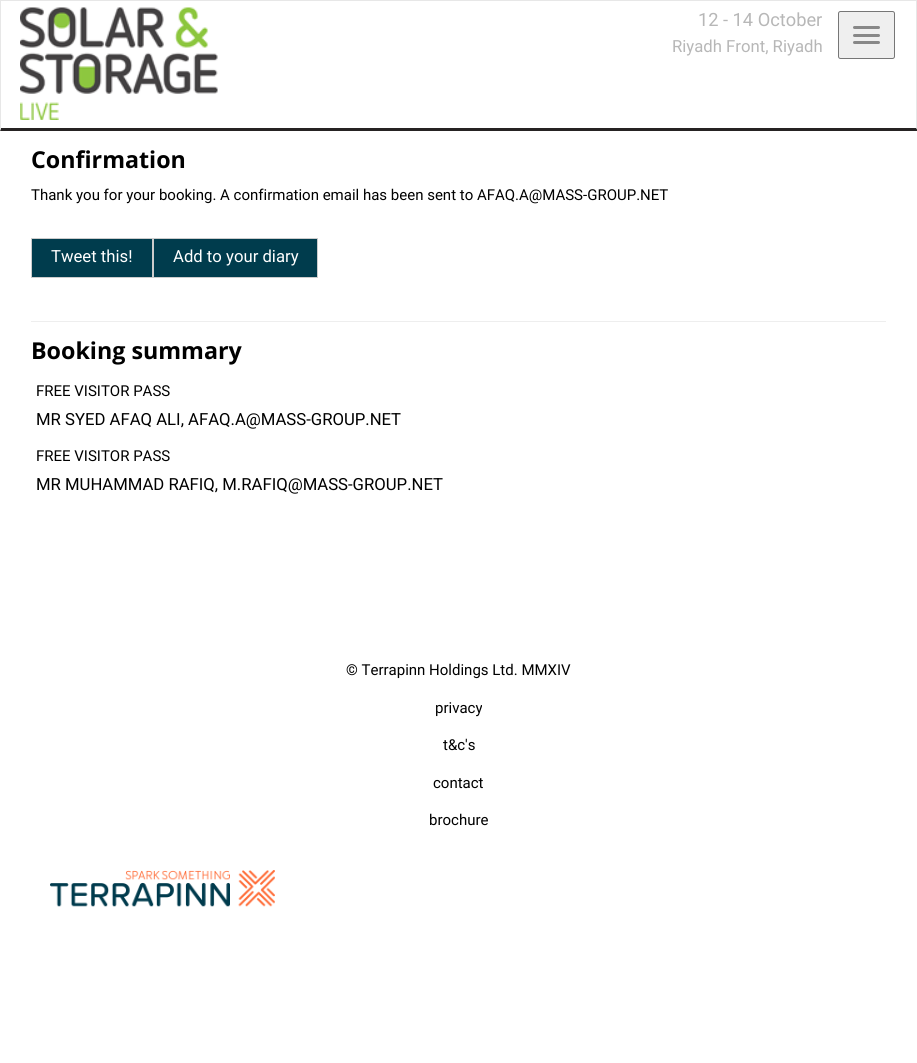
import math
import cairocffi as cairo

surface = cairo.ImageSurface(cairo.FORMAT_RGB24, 917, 1063)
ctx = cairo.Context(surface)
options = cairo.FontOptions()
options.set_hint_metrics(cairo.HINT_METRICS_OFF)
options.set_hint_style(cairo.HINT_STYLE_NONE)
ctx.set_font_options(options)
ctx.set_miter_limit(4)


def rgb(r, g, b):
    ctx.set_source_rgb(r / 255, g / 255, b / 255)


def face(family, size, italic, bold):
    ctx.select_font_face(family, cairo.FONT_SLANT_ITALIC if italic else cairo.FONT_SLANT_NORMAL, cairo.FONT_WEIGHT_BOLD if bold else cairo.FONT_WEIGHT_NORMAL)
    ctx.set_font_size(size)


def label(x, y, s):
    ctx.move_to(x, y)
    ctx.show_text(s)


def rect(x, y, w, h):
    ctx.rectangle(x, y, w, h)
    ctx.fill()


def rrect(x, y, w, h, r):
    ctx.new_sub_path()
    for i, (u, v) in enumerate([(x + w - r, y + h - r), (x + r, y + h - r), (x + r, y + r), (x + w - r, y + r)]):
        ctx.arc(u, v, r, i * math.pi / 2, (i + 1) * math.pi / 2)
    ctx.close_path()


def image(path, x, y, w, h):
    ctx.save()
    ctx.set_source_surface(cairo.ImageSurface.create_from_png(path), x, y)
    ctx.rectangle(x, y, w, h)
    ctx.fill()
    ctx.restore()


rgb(255, 255, 255)
ctx.paint()
rgb(231, 231, 231)
rect(0, 0, 917, 1)
ctx.new_path()
ctx.move_to(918, 0)
ctx.line_to(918, 131)
ctx.line_to(916, 128)
ctx.line_to(916, 1)
ctx.close_path()
ctx.fill()
rgb(38, 35, 35)
ctx.new_path()
ctx.move_to(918, 131)
ctx.line_to(0, 131)
ctx.line_to(1, 128)
ctx.line_to(916, 128)
ctx.close_path()
ctx.fill()
rgb(231, 231, 231)
ctx.new_path()
ctx.move_to(0, 131)
ctx.line_to(0, 0)
ctx.line_to(1, 1)
ctx.line_to(1, 128)
ctx.close_path()
ctx.fill()
image('image0.png', 20, 7, 198, 113)
rgb(239, 239, 239)
rrect(838.5, 11.5, 56, 47, 2)
ctx.fill_preserve()
rgb(118, 118, 118)
ctx.set_line_width(1)
ctx.stroke()
rgb(136, 136, 136)
rrect(853, 26, 27, 3, 1.5)
ctx.fill()
rrect(853, 34, 27, 3, 1.5)
ctx.fill()
rrect(853, 41, 27, 3, 1.5)
ctx.fill()
face('Roboto', 18.25, 0, 0)
rgb(183, 183, 183)
label(698, 26, '12 - 14 October')
face('Roboto', 16.7, 0, 0)
label(672, 52, 'Riyadh Front, Riyadh')
face('Open Sans', 23.25, 0, 1)
rgb(0, 0, 0)
label(31, 168, 'Confirmation')
face('Roboto', 15, 0, 0)
label(31, 200, 'Thank you for your booking. A confirmation email has been sent to AFAQ.A@MASS-GROUP.NET')
rgb(0, 60, 77)
ctx.rectangle(31.5, 238.5, 121, 39)
ctx.fill_preserve()
rgb(204, 204, 204)
ctx.stroke()
face('Roboto', 16.7, 0, 0)
rgb(255, 255, 255)
label(51, 262, 'Tweet this!')
rgb(0, 60, 77)
ctx.rectangle(153.5, 238.5, 164, 39)
ctx.fill_preserve()
rgb(204, 204, 204)
ctx.stroke()
rgb(255, 255, 255)
label(173, 262, 'Add to your diary')
rgb(238, 238, 238)
rect(31, 321, 855, 1)
face('Open Sans', 23.25, 0, 1)
rgb(0, 0, 0)
label(31, 359, 'Booking summary')
face('Roboto', 15, 0, 0)
label(36, 396, 'FREE VISITOR PASS')
face('Roboto', 16.7, 0, 0)
label(36, 425, 'MR SYED AFAQ ALI, AFAQ.A@MASS-GROUP.NET')
face('Roboto', 15, 0, 0)
label(36, 461, 'FREE VISITOR PASS')
face('Roboto', 16.7, 0, 0)
label(36, 490, 'MR MUHAMMAD RAFIQ, M.RAFIQ@MASS-GROUP.NET')
face('Roboto', 15, 0, 0)
label(346, 675, '© Terrapinn Holdings Ltd. MMXIV')
label(435, 713, 'privacy')
label(443, 750, 't&c\'s')
label(433, 788, 'contact')
label(429, 825, 'brochure')
image('image1.png', 50, 870, 225, 37)
surface.write_to_png('render.png')
